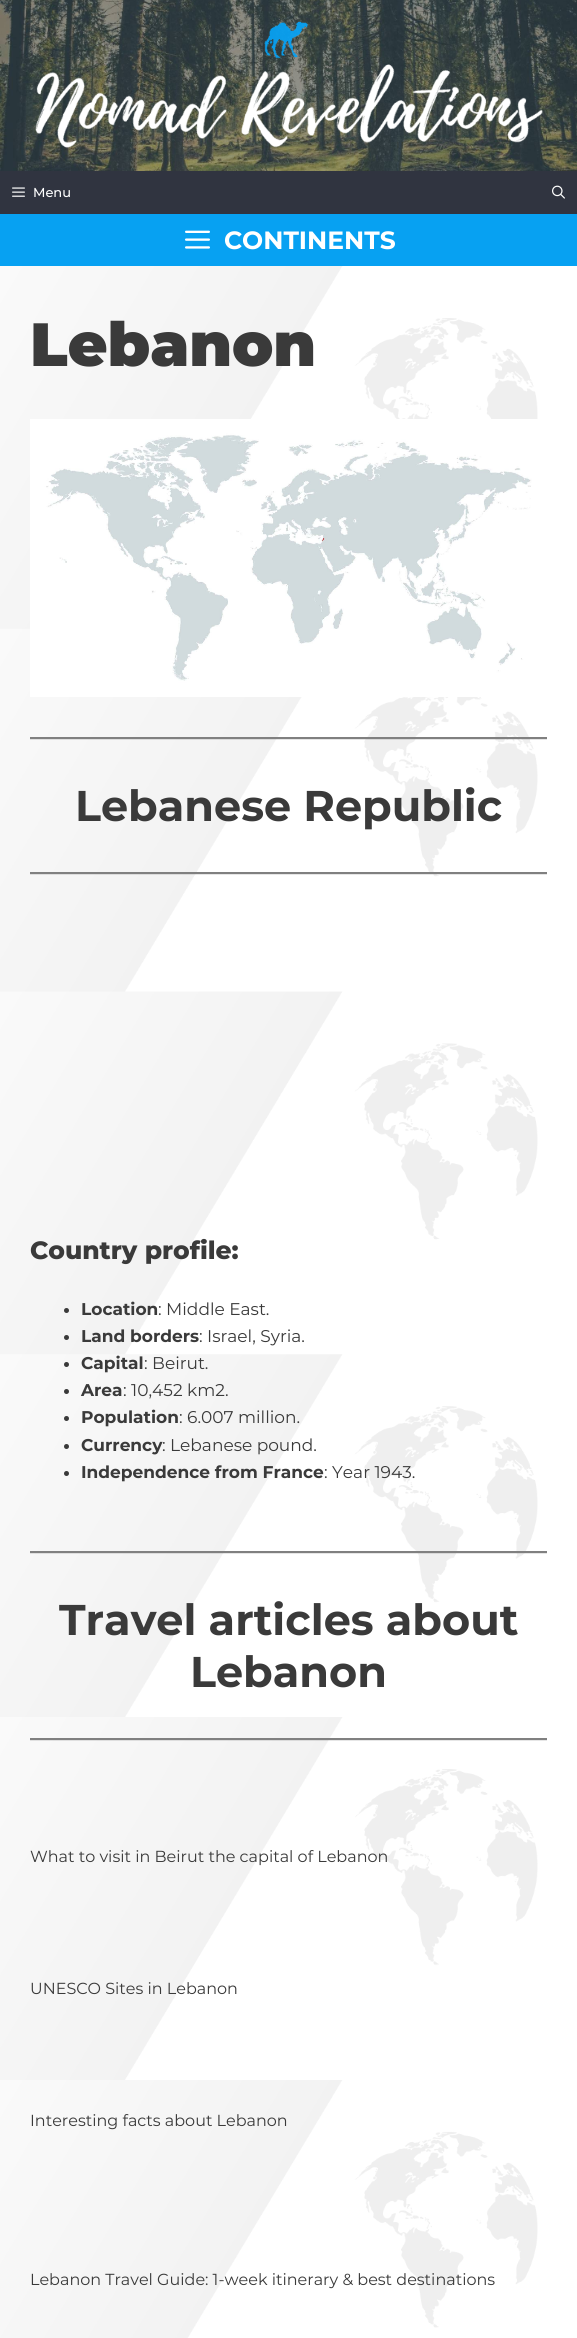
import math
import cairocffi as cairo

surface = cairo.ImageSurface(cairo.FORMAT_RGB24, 577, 2338)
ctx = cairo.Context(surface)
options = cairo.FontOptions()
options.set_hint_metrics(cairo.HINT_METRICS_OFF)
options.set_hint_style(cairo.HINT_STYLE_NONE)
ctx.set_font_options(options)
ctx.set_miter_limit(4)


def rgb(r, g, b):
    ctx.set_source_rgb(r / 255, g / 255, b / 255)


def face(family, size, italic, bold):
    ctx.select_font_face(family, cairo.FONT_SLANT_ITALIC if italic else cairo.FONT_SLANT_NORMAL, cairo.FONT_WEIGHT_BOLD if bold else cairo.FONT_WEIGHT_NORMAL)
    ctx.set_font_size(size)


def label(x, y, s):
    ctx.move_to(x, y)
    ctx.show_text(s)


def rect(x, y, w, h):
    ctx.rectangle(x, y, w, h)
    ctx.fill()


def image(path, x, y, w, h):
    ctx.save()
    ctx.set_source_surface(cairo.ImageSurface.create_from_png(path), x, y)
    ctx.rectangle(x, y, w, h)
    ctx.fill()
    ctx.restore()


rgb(255, 255, 255)
ctx.paint()
image('image0.png', 0, 0, 577, 171)
image('image1.png', 35, 21, 508, 127)
rgb(48, 52, 64)
rect(0, 171, 577, 43)
image('image2.png', 12, 187, 13, 10)
face('Montserrat Medium', 13, 0, 0)
rgb(255, 255, 255)
label(33, 197, 'Menu')
image('image3.png', 552, 185, 13, 14)
rgb(7, 161, 242)
rect(0, 214, 577, 52)
image('image4.png', 185, 230, 25, 19)
face('Montserrat', 25, 0, 1)
rgb(255, 255, 255)
label(224, 249, 'CONTINENTS')
image('image5.png', 0, 266, 538, 2072)
face('Montserrat Black', 61, 0, 0)
rgb(58, 58, 58)
label(30, 366, 'Lebanon')
image('image6.png', 30, 419, 508, 278)
ctx.set_source_rgba(0, 0, 0, 0.1)
rect(30, 739, 517, 1)
rgb(128, 128, 128)
rect(30, 737, 517, 2)
face('Montserrat', 43, 0, 1)
rgb(58, 58, 58)
label(75, 821, 'Lebanese Republic')
ctx.set_source_rgba(0, 0, 0, 0.1)
rect(30, 874, 517, 1)
rgb(128, 128, 128)
rect(30, 872, 517, 2)
face('Montserrat ExtraBold', 25, 0, 0)
rgb(58, 58, 58)
label(30, 1259, 'Country profile:')
ctx.new_path()
ctx.arc(66.5, 1310.5, 2.5, 0, 2 * math.pi)
ctx.fill()
face('Montserrat', 17, 0, 1)
label(81, 1315, 'Location')
face('Montserrat', 17, 0, 0)
label(158, 1315, ': Middle East.')
ctx.new_path()
ctx.arc(66.5, 1337.5, 2.5, 0, 2 * math.pi)
ctx.fill()
face('Montserrat', 17, 0, 1)
label(81, 1342, 'Land borders')
face('Montserrat', 17, 0, 0)
label(199, 1342, ': Israel, Syria.')
ctx.new_path()
ctx.arc(66.5, 1364.5, 2.5, 0, 2 * math.pi)
ctx.fill()
face('Montserrat', 17, 0, 1)
label(81, 1369, 'Capital')
face('Montserrat', 17, 0, 0)
label(144, 1369, ': Beirut.')
ctx.new_path()
ctx.arc(66.5, 1391.5, 2.5, 0, 2 * math.pi)
ctx.fill()
face('Montserrat', 17, 0, 1)
label(81, 1396, 'Area')
face('Montserrat', 17, 0, 0)
label(123, 1396, ': 10,452 km2.')
ctx.new_path()
ctx.arc(66.5, 1418.5, 2.5, 0, 2 * math.pi)
ctx.fill()
face('Montserrat', 17, 0, 1)
label(81, 1423, 'Population')
face('Montserrat', 17, 0, 0)
label(179, 1423, ': 6.007 million.')
ctx.new_path()
ctx.arc(66.5, 1446.5, 2.5, 0, 2 * math.pi)
ctx.fill()
face('Montserrat', 17, 0, 1)
label(81, 1451, 'Currency')
face('Montserrat', 17, 0, 0)
label(162, 1451, ': Lebanese pound.')
ctx.new_path()
ctx.arc(66.5, 1473.5, 2.5, 0, 2 * math.pi)
ctx.fill()
face('Montserrat', 17, 0, 1)
label(81, 1478, 'Independence from France')
face('Montserrat', 17, 0, 0)
label(324, 1478, ': Year 1943.')
ctx.set_source_rgba(0, 0, 0, 0.1)
rect(30, 1553, 517, 1)
rgb(128, 128, 128)
rect(30, 1551, 517, 2)
face('Montserrat', 43, 0, 1)
rgb(58, 58, 58)
label(59, 1635, 'Travel articles about')
label(190, 1687, 'Lebanon')
ctx.set_source_rgba(0, 0, 0, 0.1)
rect(30, 1740, 517, 1)
rgb(128, 128, 128)
rect(30, 1738, 517, 2)
face('Montserrat', 16, 0, 0)
rgb(58, 58, 58)
label(30, 1862, 'What to visit in Beirut the capital of Lebanon')
label(30, 1994, 'UNESCO Sites in Lebanon')
label(30, 2126, 'Interesting facts about Lebanon')
label(30, 2285, 'Lebanon Travel Guide: 1-week itinerary & best destinations')
surface.write_to_png('render.png')
